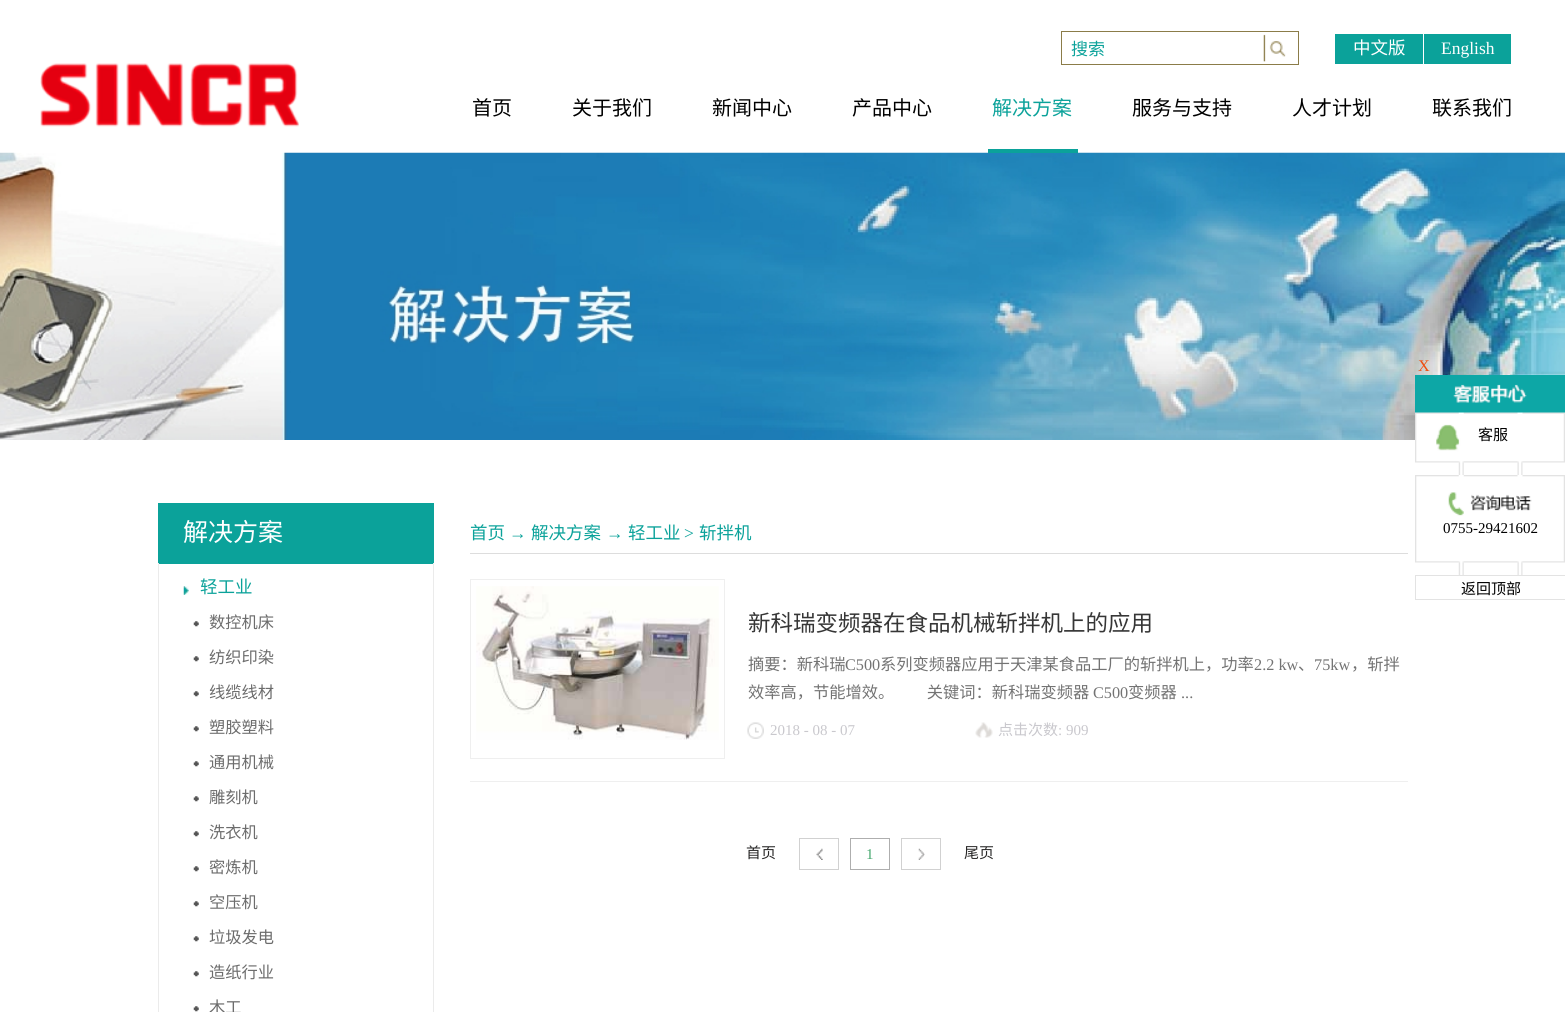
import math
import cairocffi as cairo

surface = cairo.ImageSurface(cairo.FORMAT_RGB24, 1565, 1012)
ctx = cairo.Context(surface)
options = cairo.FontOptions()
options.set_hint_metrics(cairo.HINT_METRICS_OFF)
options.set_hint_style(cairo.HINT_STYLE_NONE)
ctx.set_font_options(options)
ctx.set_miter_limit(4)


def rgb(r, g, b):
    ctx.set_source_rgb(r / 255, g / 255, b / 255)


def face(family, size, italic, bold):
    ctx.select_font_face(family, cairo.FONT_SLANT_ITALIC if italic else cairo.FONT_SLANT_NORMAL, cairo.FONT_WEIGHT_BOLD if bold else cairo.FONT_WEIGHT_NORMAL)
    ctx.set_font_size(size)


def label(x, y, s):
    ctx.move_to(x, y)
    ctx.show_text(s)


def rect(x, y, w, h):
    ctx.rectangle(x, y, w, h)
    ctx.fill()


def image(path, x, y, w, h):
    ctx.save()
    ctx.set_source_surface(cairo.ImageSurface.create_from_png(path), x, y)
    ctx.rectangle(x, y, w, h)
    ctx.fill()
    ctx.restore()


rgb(255, 255, 255)
ctx.paint()
rgb(139, 124, 73)
rect(1061, 31, 238, 1)
rect(1061, 64, 203, 1)
rect(1061, 31, 1, 34)
face('Noto Sans CJK SC', 17, 0, 0)
rgb(11, 162, 154)
label(1071, 55, '搜索')
image('image0.png', 1263, 34, 23, 28)
rgb(139, 124, 73)
rect(1298, 31, 1, 34)
rect(1264, 64, 35, 1)
rgb(11, 162, 154)
rect(1335, 34, 88, 30)
face('Noto Sans CJK SC', 17.5, 0, 0)
rgb(255, 255, 255)
label(1353, 54, '中文版')
rgb(11, 162, 154)
rect(1424, 34, 87, 30)
face('Liberation Serif', 17.5, 0, 0)
rgb(255, 255, 255)
label(1441, 54, 'English')
image('image1.png', 40, 63, 259, 64)
face('Noto Sans CJK SC', 20, 0, 0)
rgb(0, 0, 0)
label(472, 115, '首页')
label(572, 115, '关于我们')
label(712, 115, '新闻中心')
label(852, 115, '产品中心')
image('image2.png', 0, 152, 1565, 288)
rgb(11, 162, 154)
rect(988, 149, 90, 4)
label(992, 115, '解决方案')
rgb(0, 0, 0)
label(1132, 115, '服务与支持')
label(1292, 115, '人才计划')
label(1432, 115, '联系我们')
image('image3.png', 1415, 375, 150, 38)
face('Liberation Serif', 16.25, 0, 0)
rgb(238, 78, 16)
label(1418, 371, 'X')
image('image4.png', 1415, 412, 150, 63)
face('Noto Sans CJK SC', 15, 0, 0)
rgb(0, 0, 0)
label(1478, 440, '客服')
image('image5.png', 1415, 475, 150, 100)
face('Liberation Serif', 15, 0, 0)
label(1443, 533, '0755-29421602')
ctx.rectangle(1415.5, 575.5, 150, 24)
rgb(227, 227, 227)
ctx.set_line_width(1)
ctx.stroke()
face('Noto Sans CJK SC', 15, 0, 0)
rgb(0, 0, 0)
label(1461, 594, '返回顶部')
rgb(11, 162, 154)
rect(158, 503, 276, 60)
face('Noto Sans CJK SC', 25, 0, 0)
rgb(255, 255, 255)
label(183, 541, '解决方案')
rgb(235, 235, 235)
rect(433, 563, 1, 449)
rect(158, 563, 1, 449)
rgb(11, 162, 154)
rect(159, 563, 274, 1)
image('image6.png', 183, 586, 6, 9)
face('Noto Sans CJK SC', 17.5, 0, 0)
label(200, 593, '轻工业')
image('image7.png', 193, 621, 6, 6)
face('Noto Sans CJK SC', 16.25, 0, 0)
rgb(108, 108, 108)
label(209, 628, '数控机床')
image('image7.png', 193, 656, 6, 6)
label(209, 663, '纺织印染')
image('image7.png', 193, 691, 6, 6)
label(209, 698, '线缆线材')
image('image7.png', 193, 726, 6, 6)
label(209, 733, '塑胶塑料')
image('image7.png', 193, 761, 6, 6)
label(209, 768, '通用机械')
image('image7.png', 193, 796, 6, 6)
label(209, 803, '雕刻机')
image('image7.png', 193, 831, 6, 6)
label(209, 838, '洗衣机')
image('image7.png', 193, 866, 6, 6)
label(209, 873, '密炼机')
image('image7.png', 193, 901, 6, 6)
label(209, 908, '空压机')
image('image7.png', 193, 936, 6, 6)
label(209, 943, '垃圾发电')
image('image7.png', 193, 971, 6, 6)
label(209, 978, '造纸行业')
image('image7.png', 193, 1006, 6, 6)
label(209, 1013, '木工')
rgb(221, 221, 221)
rect(470, 553, 938, 1)
face('Noto Sans CJK SC', 17.5, 0, 0)
rgb(11, 162, 154)
label(470, 539, '首页')
face('Liberation Serif', 17.5, 0, 0)
label(509, 539, '→')
face('Noto Sans CJK SC', 17.5, 0, 0)
label(531, 539, '解决方案')
face('Liberation Serif', 17.5, 0, 0)
label(606, 539, '→')
face('Noto Sans CJK SC', 17.5, 0, 0)
label(628, 539, '轻工业')
face('Liberation Serif', 17.5, 0, 0)
label(684, 539, '>')
face('Noto Sans CJK SC', 17.5, 0, 0)
label(699, 539, '斩拌机')
rgb(239, 239, 239)
rect(470, 781, 938, 1)
ctx.rectangle(470.5, 579.5, 254, 179)
ctx.stroke()
image('image8.png', 476, 586, 243, 154)
face('Noto Sans CJK SC', 22.5, 0, 0)
rgb(54, 54, 54)
label(748, 631, '新科瑞变频器在食品机械斩拌机上的应用')
face('Noto Sans CJK SC', 16.25, 0, 0)
rgb(115, 115, 115)
label(748, 670, '摘要：新科瑞')
face('Liberation Serif', 16.25, 0, 0)
label(845, 670, 'C500')
face('Noto Sans CJK SC', 16.25, 0, 0)
label(880, 670, '系列变频器应用于天津某食品工厂的斩拌机上，功率')
face('Liberation Serif', 16.25, 0, 0)
label(1254, 670, '2.2 kw')
face('Noto Sans CJK SC', 16.25, 0, 0)
label(1298, 670, '、')
face('Liberation Serif', 16.25, 0, 0)
label(1314, 670, '75kw')
face('Noto Sans CJK SC', 16.25, 0, 0)
label(1351, 670, '，斩拌')
label(748, 698, '效率高，节能增效。　　关键词：新科瑞变频器')
face('Liberation Serif', 16.25, 0, 0)
label(1093, 698, 'C500')
face('Noto Sans CJK SC', 16.25, 0, 0)
label(1128, 698, '变频器')
face('Liberation Serif', 16.25, 0, 0)
label(1181, 698, '...')
image('image9.png', 747, 722, 17, 17)
face('Liberation Serif', 15, 0, 0)
rgb(201, 200, 205)
label(770, 735, '2018 - 08 - 07')
image('image10.png', 975, 722, 18, 16)
face('Noto Sans CJK SC', 15, 0, 0)
label(998, 735, '点击次数')
face('Liberation Serif', 15, 0, 0)
label(1058, 735, ': 909')
face('Noto Sans CJK SC', 15, 0, 0)
rgb(40, 39, 39)
label(746, 858, '首页')
image('image11.png', 816, 848, 7, 12)
ctx.rectangle(799.5, 838.5, 39, 31)
rgb(209, 209, 209)
ctx.stroke()
ctx.rectangle(850.5, 838.5, 39, 31)
rgb(174, 174, 174)
ctx.stroke()
face('Liberation Serif', 15, 0, 0)
rgb(69, 167, 110)
label(866, 859, '1')
image('image12.png', 918, 848, 7, 12)
ctx.rectangle(901.5, 838.5, 39, 31)
rgb(209, 209, 209)
ctx.stroke()
face('Noto Sans CJK SC', 15, 0, 0)
rgb(40, 39, 39)
label(964, 858, '尾页')
surface.write_to_png('render.png')
